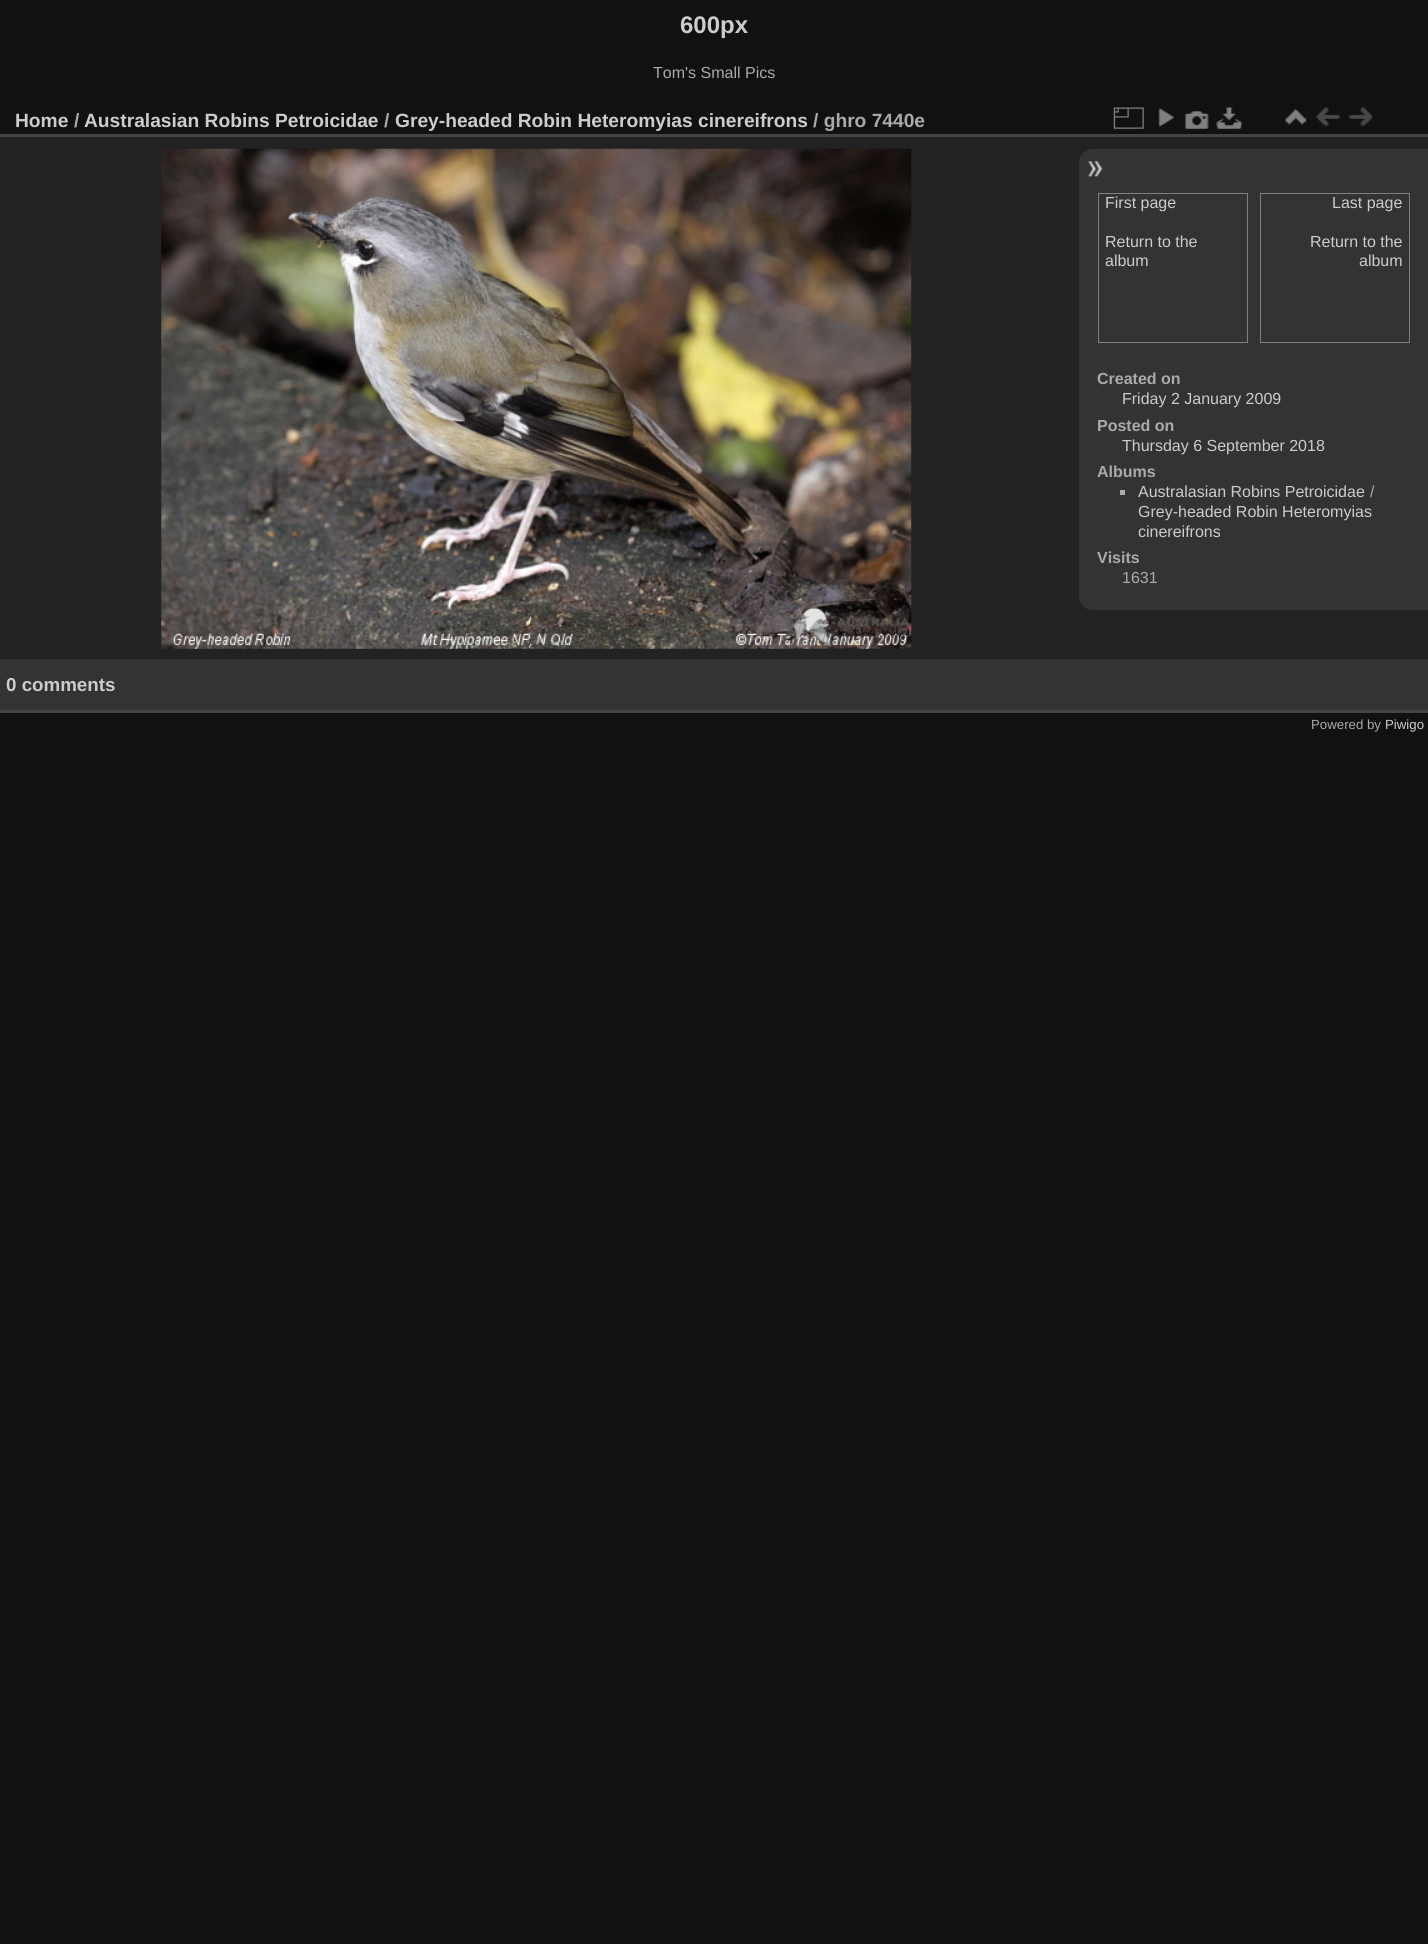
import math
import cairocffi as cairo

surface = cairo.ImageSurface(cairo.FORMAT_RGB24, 1428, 1944)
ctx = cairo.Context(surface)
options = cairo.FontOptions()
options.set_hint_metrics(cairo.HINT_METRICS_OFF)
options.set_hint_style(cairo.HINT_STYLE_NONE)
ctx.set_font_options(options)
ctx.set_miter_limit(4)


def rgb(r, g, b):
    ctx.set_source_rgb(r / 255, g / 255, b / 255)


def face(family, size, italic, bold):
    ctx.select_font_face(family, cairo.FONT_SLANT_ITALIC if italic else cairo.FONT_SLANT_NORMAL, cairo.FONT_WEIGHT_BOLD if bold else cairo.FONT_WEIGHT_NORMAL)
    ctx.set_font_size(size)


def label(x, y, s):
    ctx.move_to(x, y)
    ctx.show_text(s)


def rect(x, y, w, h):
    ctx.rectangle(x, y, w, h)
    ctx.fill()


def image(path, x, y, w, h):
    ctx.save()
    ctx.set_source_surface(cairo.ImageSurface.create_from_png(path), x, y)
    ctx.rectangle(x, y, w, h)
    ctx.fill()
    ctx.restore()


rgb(17, 17, 17)
ctx.paint()
face('Liberation Sans', 24, 0, 1)
rgb(204, 204, 204)
label(680, 33, '600px')
face('Liberation Sans', 16, 0, 0)
rgb(170, 170, 170)
label(653, 78, 'Tom\'s Small Pics')
rgb(34, 34, 34)
rect(0, 137, 1428, 522)
rgb(68, 68, 68)
rect(0, 710, 1428, 3)
rect(0, 134, 1428, 3)
face('Liberation Sans', 19.2, 0, 1)
rgb(204, 204, 204)
label(15, 127, 'Home')
rgb(170, 170, 170)
label(74, 127, '/')
rgb(204, 204, 204)
label(84, 127, 'Australasian Robins Petroicidae')
rgb(170, 170, 170)
label(384, 127, '/')
rgb(204, 204, 204)
label(395, 127, 'Grey-headed Robin Heteromyias cinereifrons')
rgb(170, 170, 170)
label(813, 127, '/ ghro 7440e')
image('image0.png', 1113, 107, 31, 22)
image('image1.png', 1158, 108, 16, 19)
image('image2.png', 1185, 111, 24, 18)
image('image3.png', 1216, 107, 27, 22)
image('image4.png', 1285, 108, 22, 18)
image('image5.png', 1316, 107, 24, 20)
image('image6.png', 1348, 107, 25, 20)
image('image7.png', 161, 148, 751, 501)
rgb(51, 51, 51)
ctx.new_path()
ctx.move_to(1092, 149)
ctx.line_to(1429, 149)
ctx.line_to(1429, 610)
ctx.line_to(1092, 610)
ctx.curve_to(1085, 610, 1079, 604, 1079, 597)
ctx.line_to(1079, 162)
ctx.curve_to(1079, 155, 1085, 149, 1092, 149)
ctx.close_path()
ctx.fill()
image('image8.png', 1088, 161, 15, 16)
ctx.rectangle(1098.5, 193.5, 149, 149)
rgb(128, 128, 128)
ctx.set_line_width(1)
ctx.stroke()
face('Liberation Sans', 16, 0, 0)
rgb(204, 204, 204)
label(1105, 208, 'First page')
label(1105, 247, 'Return to the')
label(1105, 266, 'album')
ctx.rectangle(1260.5, 193.5, 149, 149)
rgb(128, 128, 128)
ctx.stroke()
rgb(204, 204, 204)
label(1332, 208, 'Last page')
label(1310, 247, 'Return to the')
label(1359, 266, 'album')
face('Liberation Sans', 16, 0, 1)
rgb(170, 170, 170)
label(1097, 384, 'Created on')
face('Liberation Sans', 16, 0, 0)
rgb(204, 204, 204)
label(1122, 404, 'Friday 2 January 2009')
face('Liberation Sans', 16, 0, 1)
rgb(170, 170, 170)
label(1097, 431, 'Posted on')
face('Liberation Sans', 16, 0, 0)
rgb(204, 204, 204)
label(1122, 451, 'Thursday 6 September 2018')
face('Liberation Sans', 16, 0, 1)
rgb(170, 170, 170)
label(1097, 477, 'Albums')
rect(1120, 490, 5, 5)
face('Liberation Sans', 16, 0, 0)
rgb(204, 204, 204)
label(1138, 497, 'Australasian Robins Petroicidae')
rgb(170, 170, 170)
label(1370, 497, '/')
rgb(204, 204, 204)
label(1138, 517, 'Grey-headed Robin Heteromyias')
label(1138, 537, 'cinereifrons')
face('Liberation Sans', 16, 0, 1)
rgb(170, 170, 170)
label(1097, 563, 'Visits')
face('Liberation Sans', 16, 0, 0)
label(1122, 583, '1631')
rgb(51, 51, 51)
rect(0, 659, 1428, 51)
face('Liberation Sans', 18.75, 0, 1)
rgb(204, 204, 204)
label(6, 691, '0 comments')
face('Liberation Sans', 13.25, 0, 0)
rgb(170, 170, 170)
label(1311, 729, 'Powered by')
rgb(204, 204, 204)
label(1385, 729, 'Piwigo')
surface.write_to_png('render.png')
